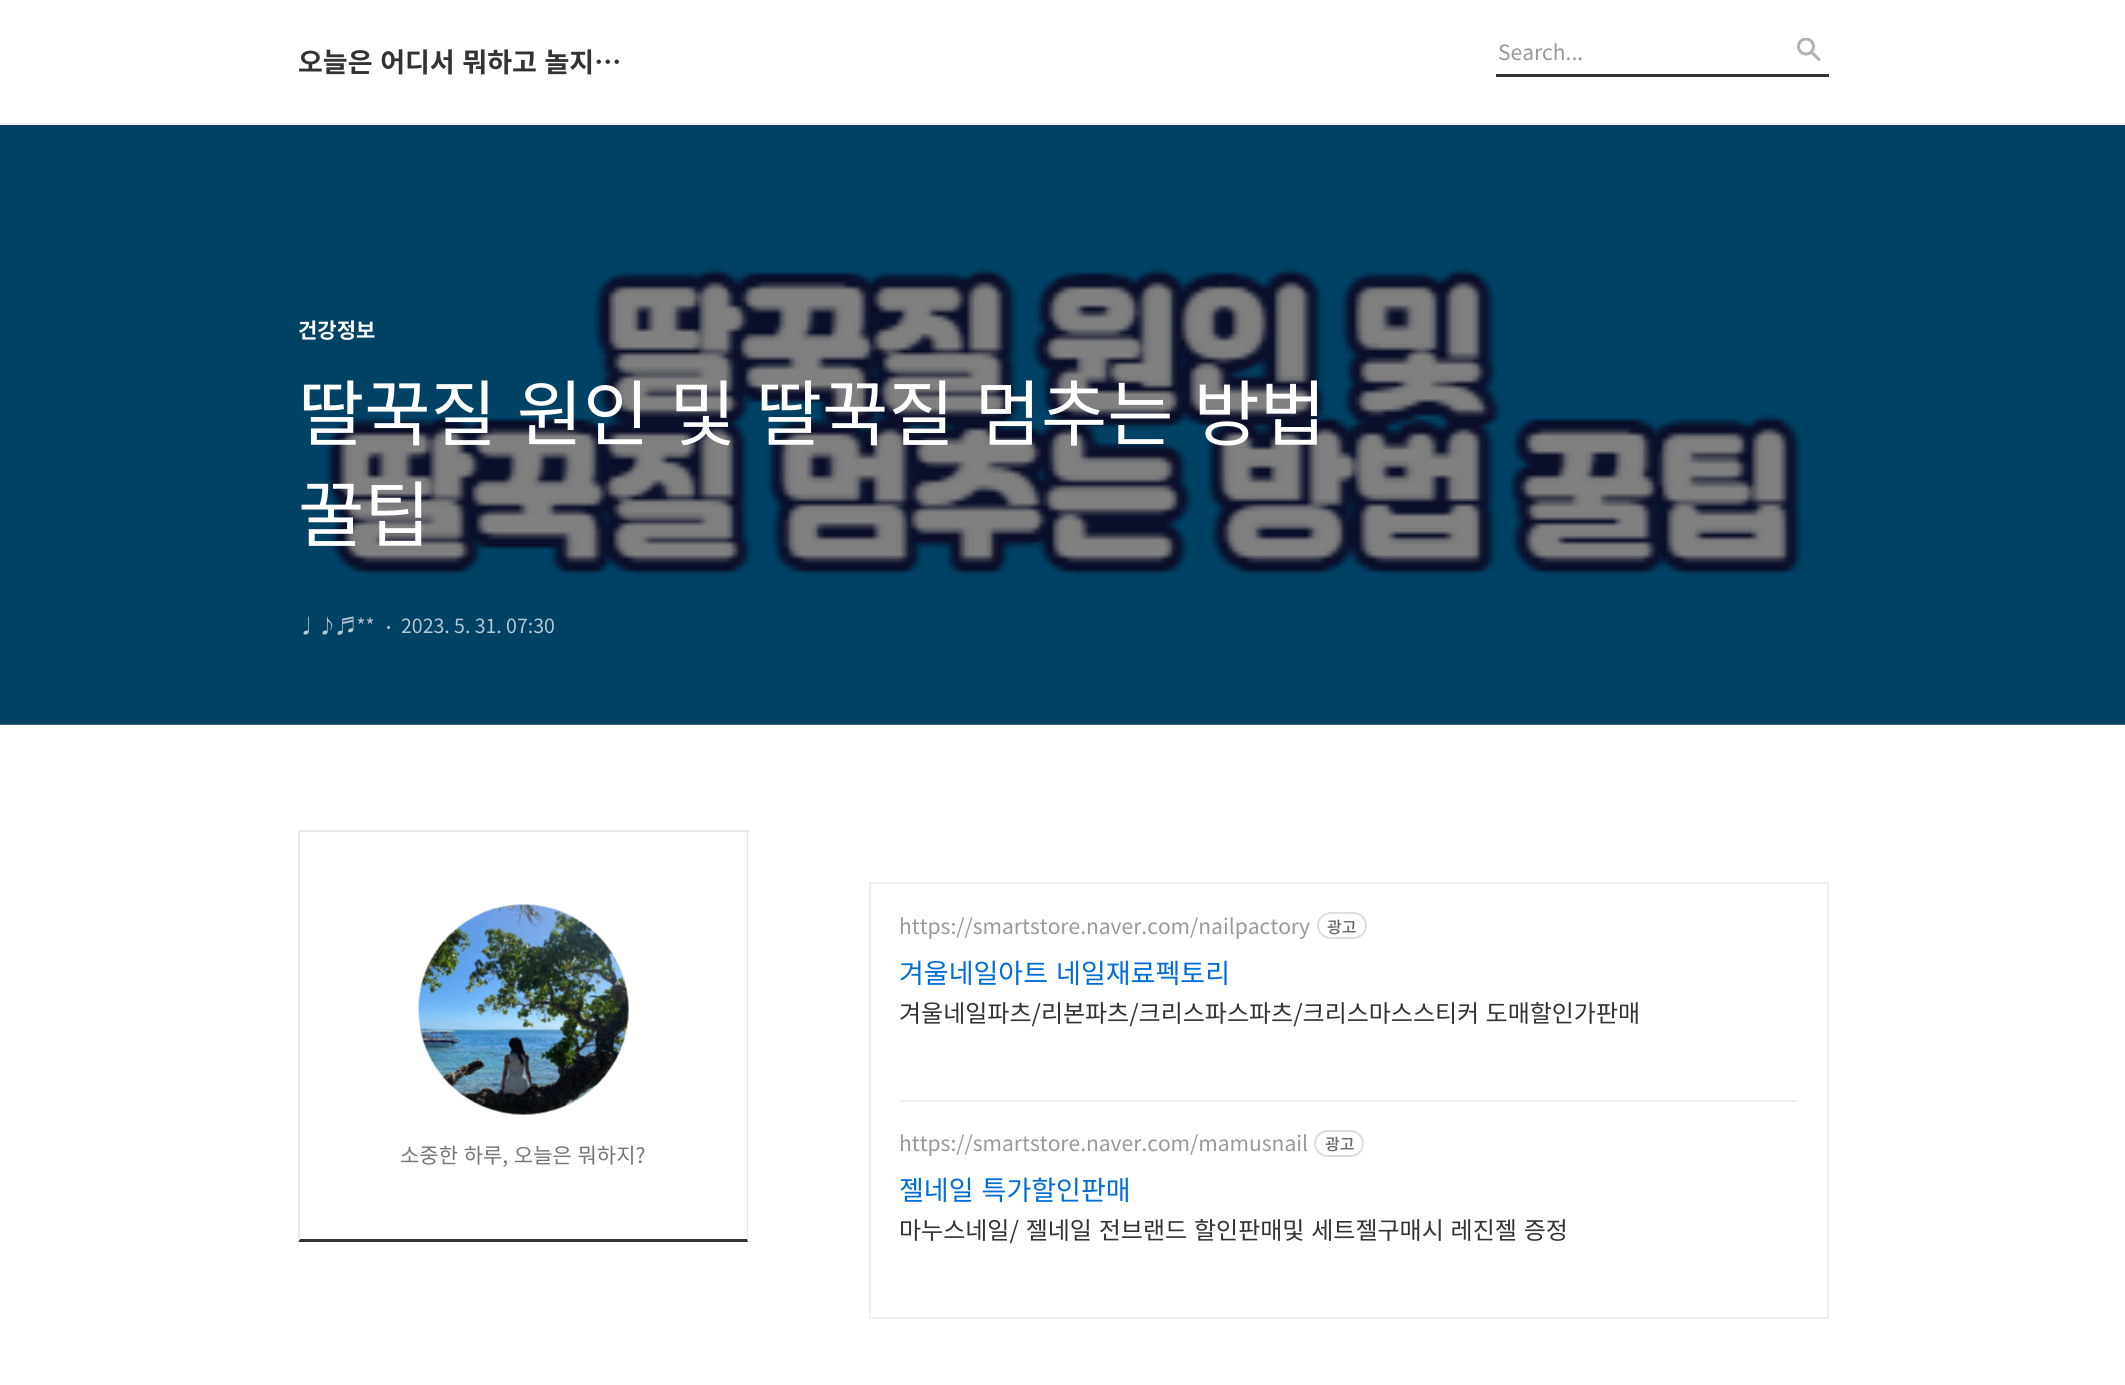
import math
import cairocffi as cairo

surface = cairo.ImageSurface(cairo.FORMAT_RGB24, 2125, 1385)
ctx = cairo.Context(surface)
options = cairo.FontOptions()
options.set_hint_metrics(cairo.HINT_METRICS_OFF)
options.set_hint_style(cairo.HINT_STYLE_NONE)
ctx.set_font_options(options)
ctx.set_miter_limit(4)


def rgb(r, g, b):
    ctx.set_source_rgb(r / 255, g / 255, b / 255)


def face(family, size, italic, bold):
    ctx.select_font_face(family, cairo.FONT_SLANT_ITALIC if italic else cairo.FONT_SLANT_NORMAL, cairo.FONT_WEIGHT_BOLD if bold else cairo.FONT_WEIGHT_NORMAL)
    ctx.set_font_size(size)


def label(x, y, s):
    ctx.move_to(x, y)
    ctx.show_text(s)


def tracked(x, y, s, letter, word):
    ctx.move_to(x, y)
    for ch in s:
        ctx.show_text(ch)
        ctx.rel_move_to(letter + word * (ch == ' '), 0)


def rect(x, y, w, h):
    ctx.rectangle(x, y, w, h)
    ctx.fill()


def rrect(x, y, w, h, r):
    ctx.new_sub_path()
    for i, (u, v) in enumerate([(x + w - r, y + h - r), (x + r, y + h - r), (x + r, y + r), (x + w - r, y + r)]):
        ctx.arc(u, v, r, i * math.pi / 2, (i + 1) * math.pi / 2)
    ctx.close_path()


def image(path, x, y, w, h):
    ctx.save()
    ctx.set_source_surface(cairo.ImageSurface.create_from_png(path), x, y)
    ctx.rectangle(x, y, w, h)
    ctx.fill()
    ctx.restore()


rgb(255, 255, 255)
ctx.paint()
rgb(128, 128, 128)
rect(0, 724, 2125, 1)
rgb(239, 239, 239)
rect(0, 123, 2125, 2)
ctx.save()
ctx.rectangle(299, 45, 330, 33)
ctx.clip()
face('Noto Sans KR', 27, 0, 1)
rgb(51, 51, 51)
tracked(298, 72, '오늘은 어디서 뭐하고 놀지…', 0, 1.5)
ctx.restore()
image('image0.png', 1797, 38, 24, 23)
rgb(51, 51, 51)
rect(1496, 74, 333, 3)
face('Noto Sans KR', 21, 0, 0)
rgb(153, 153, 153)
label(1498, 60, 'Search...')
image('image1.png', 0, 125, 2125, 600)
face('Noto Sans KR', 21, 0, 1)
rgb(255, 255, 255)
label(298, 338, '건강정보')
face('Noto Sans KR', 72, 0, 0)
tracked(298, 440, '딸꾹질 원인 및 딸꾹질 멈추는 방법', 0, 4)
label(298, 541, '꿀팁')
face('Noto Sans KR', 19.5, 0, 0)
rgb(179, 198, 209)
label(298, 633, '♩♪♬**')
ctx.new_path()
ctx.arc(388.5, 627.5, 1.5, 0, 2 * math.pi)
ctx.fill()
label(401, 633, '2023. 5. 31. 07:30')
ctx.rectangle(870, 883, 958, 435)
rgb(238, 238, 238)
ctx.stroke()
face('Noto Sans KR', 21, 0, 0)
rgb(153, 153, 153)
label(899, 934, 'https://smartstore.naver.com/nailpactory')
rrect(1318, 913, 48, 25, 12.5)
rgb(221, 221, 221)
ctx.stroke()
face('Noto Sans KR Medium', 16, 0, 0)
rgb(102, 102, 102)
label(1327, 933, '광고')
face('Noto Sans KR', 27, 0, 0)
rgb(1, 109, 215)
tracked(899, 983, '겨울네일아트 네일재료펙토리', 0, 2)
face('Noto Sans KR', 24, 0, 0)
rgb(51, 51, 51)
tracked(899, 1022, '겨울네일파츠/리본파츠/크리스파스파츠/크리스마스스티커 도매할인가판매', 0, 1)
rgb(238, 238, 238)
rect(900, 1100, 897, 2)
face('Noto Sans KR', 21, 0, 0)
rgb(153, 153, 153)
label(899, 1151, 'https://smartstore.naver.com/mamusnail')
rrect(1315, 1131, 48, 25, 12.5)
rgb(221, 221, 221)
ctx.stroke()
face('Noto Sans KR Medium', 16, 0, 0)
rgb(102, 102, 102)
label(1325, 1150, '광고')
face('Noto Sans KR', 27, 0, 0)
rgb(1, 109, 215)
tracked(899, 1200, '젤네일 특가할인판매', 0, 2)
face('Noto Sans KR', 24, 0, 0)
rgb(51, 51, 51)
tracked(899, 1239, '마누스네일/ 젤네일 전브랜드 할인판매및 세트젤구매시 레진젤 증정', 0, 1.5)
rgb(232, 232, 232)
rect(299, 830, 450, 2)
ctx.new_path()
ctx.move_to(748, 830)
ctx.line_to(748, 1242)
ctx.line_to(747, 1239)
ctx.line_to(747, 831)
ctx.close_path()
ctx.fill()
rgb(51, 51, 51)
ctx.new_path()
ctx.move_to(748, 1242)
ctx.line_to(298, 1242)
ctx.line_to(300, 1239)
ctx.line_to(747, 1239)
ctx.close_path()
ctx.fill()
rgb(232, 232, 232)
ctx.new_path()
ctx.move_to(298, 1242)
ctx.line_to(298, 830)
ctx.line_to(300, 831)
ctx.line_to(300, 1239)
ctx.close_path()
ctx.fill()
image('image2.png', 418, 904, 211, 211)
face('Noto Sans KR', 21, 0, 0)
rgb(119, 119, 119)
tracked(400, 1163, '소중한 하루, 오늘은 뭐하지?', 0, 1)
surface.write_to_png('render.png')
